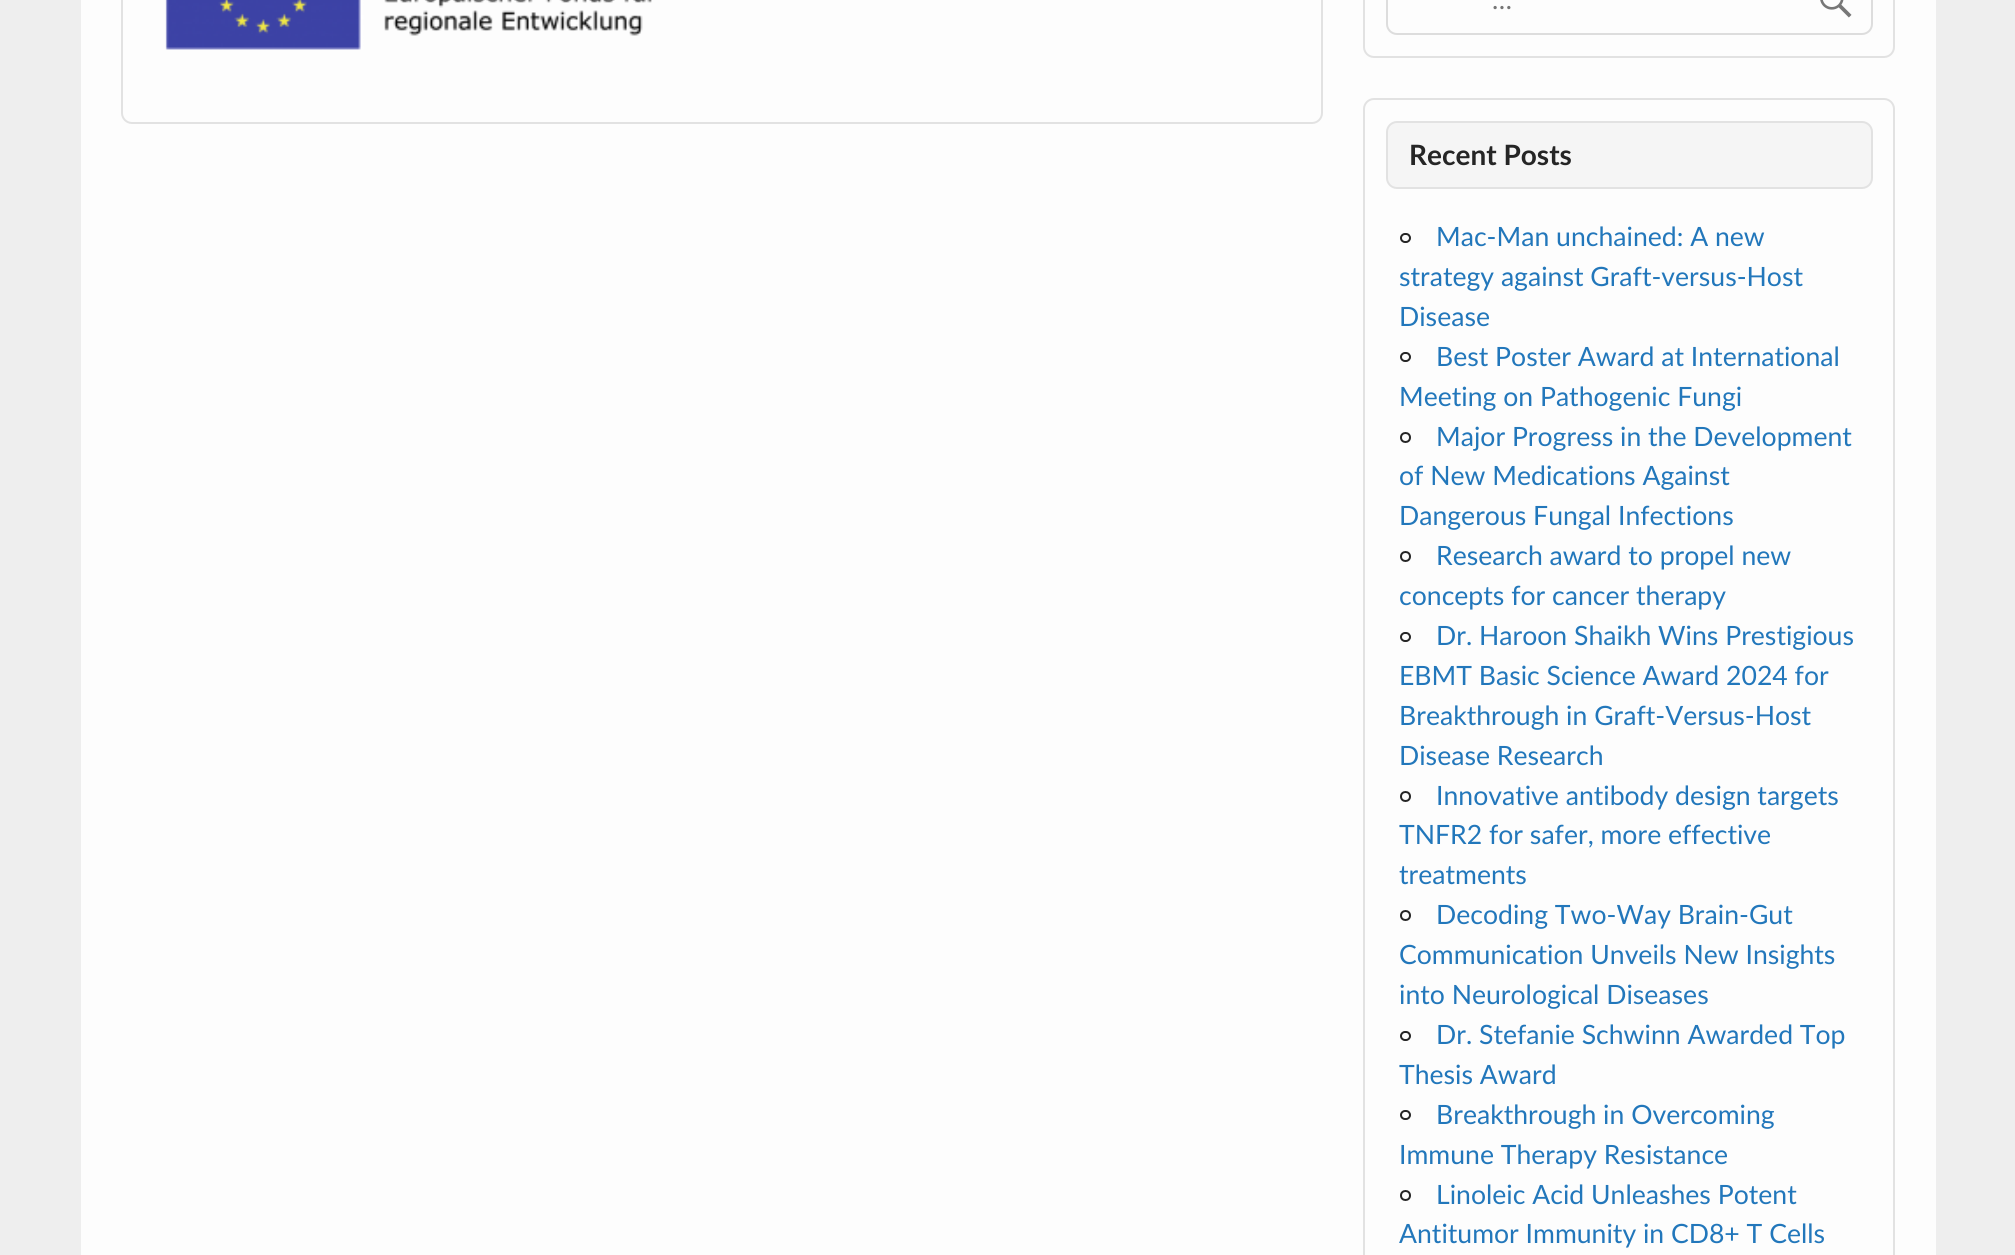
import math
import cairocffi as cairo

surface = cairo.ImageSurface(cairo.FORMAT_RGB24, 2015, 1255)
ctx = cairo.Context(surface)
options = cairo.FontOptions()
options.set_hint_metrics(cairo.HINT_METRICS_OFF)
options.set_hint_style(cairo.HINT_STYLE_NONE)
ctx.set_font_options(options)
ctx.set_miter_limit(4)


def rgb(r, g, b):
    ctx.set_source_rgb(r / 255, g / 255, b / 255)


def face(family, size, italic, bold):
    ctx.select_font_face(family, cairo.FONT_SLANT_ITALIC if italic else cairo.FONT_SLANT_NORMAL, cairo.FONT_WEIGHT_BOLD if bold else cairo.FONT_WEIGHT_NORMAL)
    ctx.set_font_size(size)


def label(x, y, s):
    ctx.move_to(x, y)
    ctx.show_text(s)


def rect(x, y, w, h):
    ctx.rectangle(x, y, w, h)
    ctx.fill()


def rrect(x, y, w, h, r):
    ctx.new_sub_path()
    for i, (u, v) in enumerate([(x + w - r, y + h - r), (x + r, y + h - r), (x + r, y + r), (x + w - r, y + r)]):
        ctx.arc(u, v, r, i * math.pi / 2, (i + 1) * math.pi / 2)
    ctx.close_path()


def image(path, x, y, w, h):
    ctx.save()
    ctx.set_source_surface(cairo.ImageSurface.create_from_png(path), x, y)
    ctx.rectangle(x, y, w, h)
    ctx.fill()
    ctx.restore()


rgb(238, 238, 238)
ctx.paint()
rgb(253, 253, 253)
rect(81, 0, 1855, 1255)
rrect(122, -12, 1200, 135, 10)
rgb(226, 226, 226)
ctx.stroke()
image('image0.png', 165, 0, 487, 50)
rrect(1364, -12, 530, 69, 10)
ctx.stroke()
rrect(1387, -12, 485, 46, 10)
rgb(221, 221, 221)
ctx.stroke()
face('Lato', 26.6, 0, 0)
rgb(117, 117, 117)
label(1492, 9, '…')
image('image1.png', 1820, 0, 32, 18)
rrect(1364, 99, 530, 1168, 10)
rgb(226, 226, 226)
ctx.stroke()
rgb(245, 245, 245)
rrect(1387, 122, 485, 66, 10)
ctx.fill_preserve()
rgb(226, 226, 226)
ctx.stroke()
face('Lato', 28, 0, 1)
rgb(37, 37, 37)
label(1409, 165, 'Recent Posts')
rrect(1401, 234, 9, 8, 4)
ctx.stroke()
face('Lato', 26.6, 0, 0)
rgb(34, 119, 187)
label(1436, 246, 'Mac-Man unchained: A new')
label(1399, 286, 'strategy against Graft-versus-Host')
label(1399, 326, 'Disease')
rrect(1401, 353, 9, 8, 4)
rgb(37, 37, 37)
ctx.stroke()
rgb(34, 119, 187)
label(1436, 366, 'Best Poster Award at International')
label(1399, 406, 'Meeting on Pathogenic Fungi')
ctx.new_path()
ctx.arc(1405.5, 437.5, 4.5, 0, 2 * math.pi)
rgb(37, 37, 37)
ctx.stroke()
rgb(34, 119, 187)
label(1436, 446, 'Major Progress in the Development')
label(1399, 485, 'of New Medications Against')
label(1399, 525, 'Dangerous Fungal Infections')
ctx.new_path()
ctx.arc(1405.5, 556.5, 4.5, 0, 2 * math.pi)
rgb(37, 37, 37)
ctx.stroke()
rgb(34, 119, 187)
label(1436, 565, 'Research award to propel new')
label(1399, 605, 'concepts for cancer therapy')
rrect(1401, 633, 9, 8, 4)
rgb(37, 37, 37)
ctx.stroke()
rgb(34, 119, 187)
label(1436, 645, 'Dr. Haroon Shaikh Wins Prestigious')
label(1399, 685, 'EBMT Basic Science Award 2024 for')
label(1399, 725, 'Breakthrough in Graft-Versus-Host')
label(1399, 765, 'Disease Research')
ctx.new_path()
ctx.arc(1405.5, 796.5, 4.5, 0, 2 * math.pi)
rgb(37, 37, 37)
ctx.stroke()
rgb(34, 119, 187)
label(1436, 805, 'Innovative antibody design targets')
label(1399, 844, 'TNFR2 for safer, more effective')
label(1399, 884, 'treatments')
ctx.new_path()
ctx.arc(1405.5, 915.5, 4.5, 0, 2 * math.pi)
rgb(37, 37, 37)
ctx.stroke()
rgb(34, 119, 187)
label(1436, 924, 'Decoding Two-Way Brain-Gut')
label(1399, 964, 'Communication Unveils New Insights')
label(1399, 1004, 'into Neurological Diseases')
rrect(1401, 1032, 9, 8, 4)
rgb(37, 37, 37)
ctx.stroke()
rgb(34, 119, 187)
label(1436, 1044, 'Dr. Stefanie Schwinn Awarded Top')
label(1399, 1084, 'Thesis Award')
rrect(1401, 1111, 9, 8, 4)
rgb(37, 37, 37)
ctx.stroke()
rgb(34, 119, 187)
label(1436, 1124, 'Breakthrough in Overcoming')
label(1399, 1164, 'Immune Therapy Resistance')
ctx.new_path()
ctx.arc(1405.5, 1195.5, 4.5, 0, 2 * math.pi)
rgb(37, 37, 37)
ctx.stroke()
rgb(34, 119, 187)
label(1436, 1204, 'Linoleic Acid Unleashes Potent')
label(1399, 1243, 'Antitumor Immunity in CD8+ T Cells')
surface.write_to_png('render.png')
